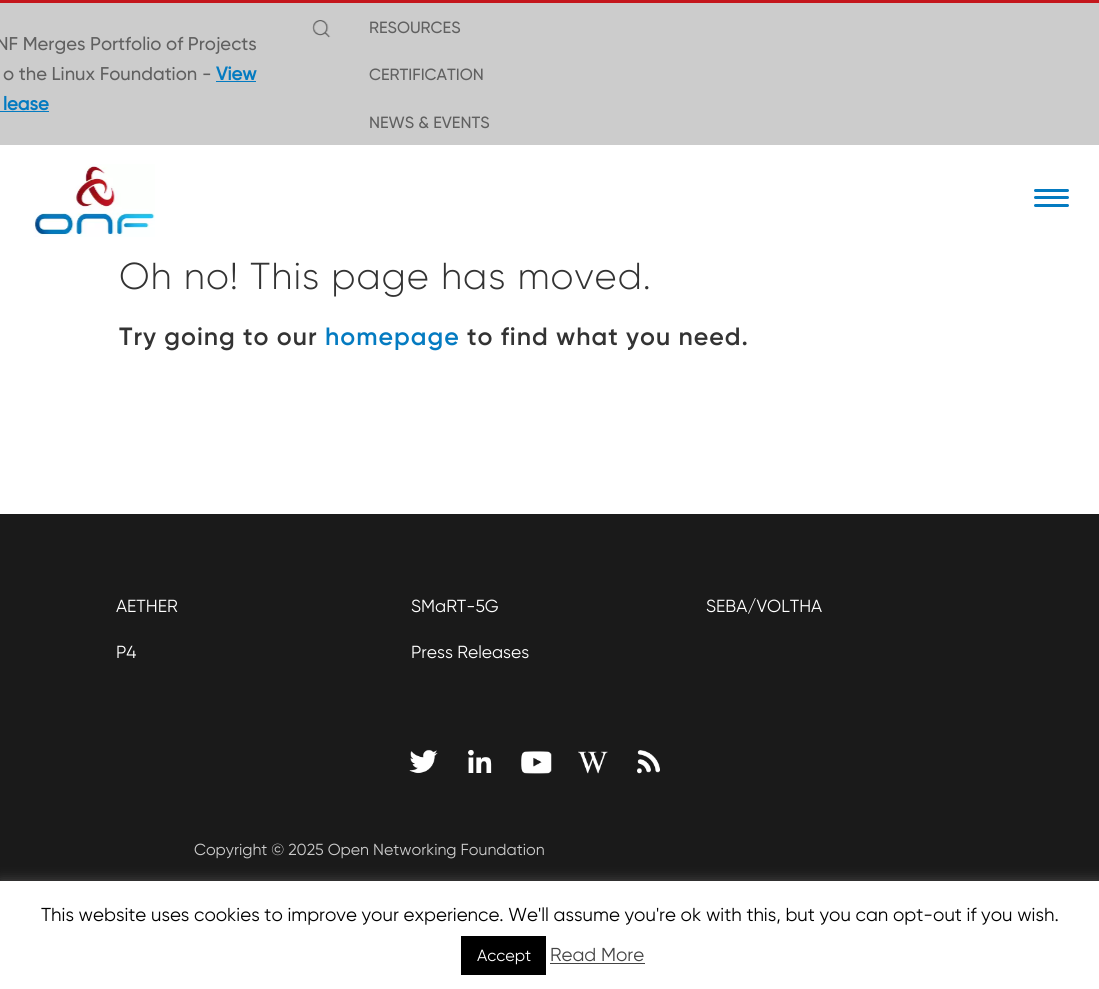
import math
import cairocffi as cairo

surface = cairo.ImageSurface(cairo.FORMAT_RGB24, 1099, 989)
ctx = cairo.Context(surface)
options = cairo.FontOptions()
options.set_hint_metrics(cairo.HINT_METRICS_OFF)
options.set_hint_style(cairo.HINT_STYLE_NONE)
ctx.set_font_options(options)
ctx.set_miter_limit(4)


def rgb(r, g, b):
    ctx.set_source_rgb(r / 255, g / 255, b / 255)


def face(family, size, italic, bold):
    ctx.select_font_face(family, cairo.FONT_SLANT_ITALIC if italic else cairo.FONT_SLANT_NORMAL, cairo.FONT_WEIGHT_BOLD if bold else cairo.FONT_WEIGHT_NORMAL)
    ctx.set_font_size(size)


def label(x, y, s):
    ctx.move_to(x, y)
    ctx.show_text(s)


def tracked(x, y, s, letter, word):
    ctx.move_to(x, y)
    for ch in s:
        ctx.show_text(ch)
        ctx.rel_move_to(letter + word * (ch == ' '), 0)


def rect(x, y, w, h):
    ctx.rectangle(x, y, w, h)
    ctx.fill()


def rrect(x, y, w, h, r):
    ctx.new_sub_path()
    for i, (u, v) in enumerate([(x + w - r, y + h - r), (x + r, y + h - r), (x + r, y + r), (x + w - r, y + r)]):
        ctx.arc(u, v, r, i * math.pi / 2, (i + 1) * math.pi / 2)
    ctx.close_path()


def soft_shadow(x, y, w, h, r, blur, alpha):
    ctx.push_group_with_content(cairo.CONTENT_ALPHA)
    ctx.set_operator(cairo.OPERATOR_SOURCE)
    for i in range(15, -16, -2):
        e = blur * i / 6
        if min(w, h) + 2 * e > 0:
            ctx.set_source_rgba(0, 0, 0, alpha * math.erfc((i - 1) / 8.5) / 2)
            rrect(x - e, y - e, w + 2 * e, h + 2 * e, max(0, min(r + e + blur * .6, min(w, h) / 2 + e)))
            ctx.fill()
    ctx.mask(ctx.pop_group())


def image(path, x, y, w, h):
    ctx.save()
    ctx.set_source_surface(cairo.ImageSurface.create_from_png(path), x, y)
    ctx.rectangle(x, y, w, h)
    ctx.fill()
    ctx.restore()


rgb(255, 255, 255)
ctx.paint()
rgb(204, 204, 204)
rect(0, 3, 1099, 142)
rgb(196, 22, 28)
rect(0, 0, 1099, 3)
face('Gilroy Medium', 18.5, 0, 0)
rgb(96, 96, 96)
label(-4, 50, 'NF Merges Portfolio of Projects')
label(3, 80, 'o the Linux Foundation -')
face('Gilroy', 18.5, 0, 1)
rgb(4, 123, 193)
label(216, 80, 'View')
rect(216, 81, 40, 1)
label(3, 110, 'lease')
rect(0, 111, 49, 1)
image('image0.png', 312, 20, 19, 18)
face('Gilroy Medium', 16.25, 0, 0)
rgb(96, 96, 96)
label(369, 33, 'RESOURCES')
label(369, 80, 'CERTIFICATION')
label(369, 128, 'NEWS & EVENTS')
image('image1.png', 33, 164, 122, 73)
rgb(4, 123, 193)
rrect(1034, 189, 35, 3, 1.5)
ctx.fill()
rrect(1034, 196, 35, 3, 1.5)
ctx.fill()
rrect(1034, 204, 35, 3, 1.5)
ctx.fill()
face('Gilroy Light', 37.5, 0, 0)
rgb(51, 51, 51)
tracked(119, 289, 'Oh no! This page has moved.', 1, 0)
face('Gilroy SemiBold', 25, 0, 0)
tracked(119, 345, 'Try going to our', 1, 0)
rgb(4, 123, 193)
tracked(325, 345, 'homepage', 1, 0)
rgb(51, 51, 51)
tracked(467, 345, 'to find what you need.', 1, 0)
rgb(26, 26, 26)
rect(0, 514, 1099, 367)
face('Gilroy', 17.5, 0, 0)
rgb(255, 255, 255)
label(116, 612, 'AETHER')
label(411, 612, 'SMaRT-5G')
label(706, 612, 'SEBA/VOLTHA')
label(116, 658, 'P4')
label(411, 658, 'Press Releases')
image('image2.png', 409, 749, 29, 25)
image('image3.png', 468, 749, 24, 24)
image('image4.png', 521, 751, 31, 23)
image('image5.png', 578, 751, 30, 23)
image('image6.png', 637, 750, 23, 24)
face('Gilroy', 16, 0, 0)
rgb(204, 204, 204)
label(194, 855, 'Copyright © 2025 Open Networking Foundation')
rgb(172, 171, 171)
soft_shadow(0, 880, 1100, 109, 0, 6, 0.3)
rgb(255, 255, 255)
rect(0, 881, 1099, 108)
face('Gilroy', 18.75, 0, 0)
rgb(0, 0, 0)
label(41, 921, 'This website uses cookies to improve your experience. We\'ll assume you\'re ok with this, but you can opt-out if you wish.')
rect(461, 936, 85, 39)
face('Gilroy', 16.25, 0, 0)
rgb(255, 255, 255)
label(477, 961, 'Accept')
face('Gilroy', 18.75, 0, 0)
rgb(68, 68, 68)
label(550, 961, 'Read More')
rect(550, 963, 95, 1)
surface.write_to_png('render.png')
